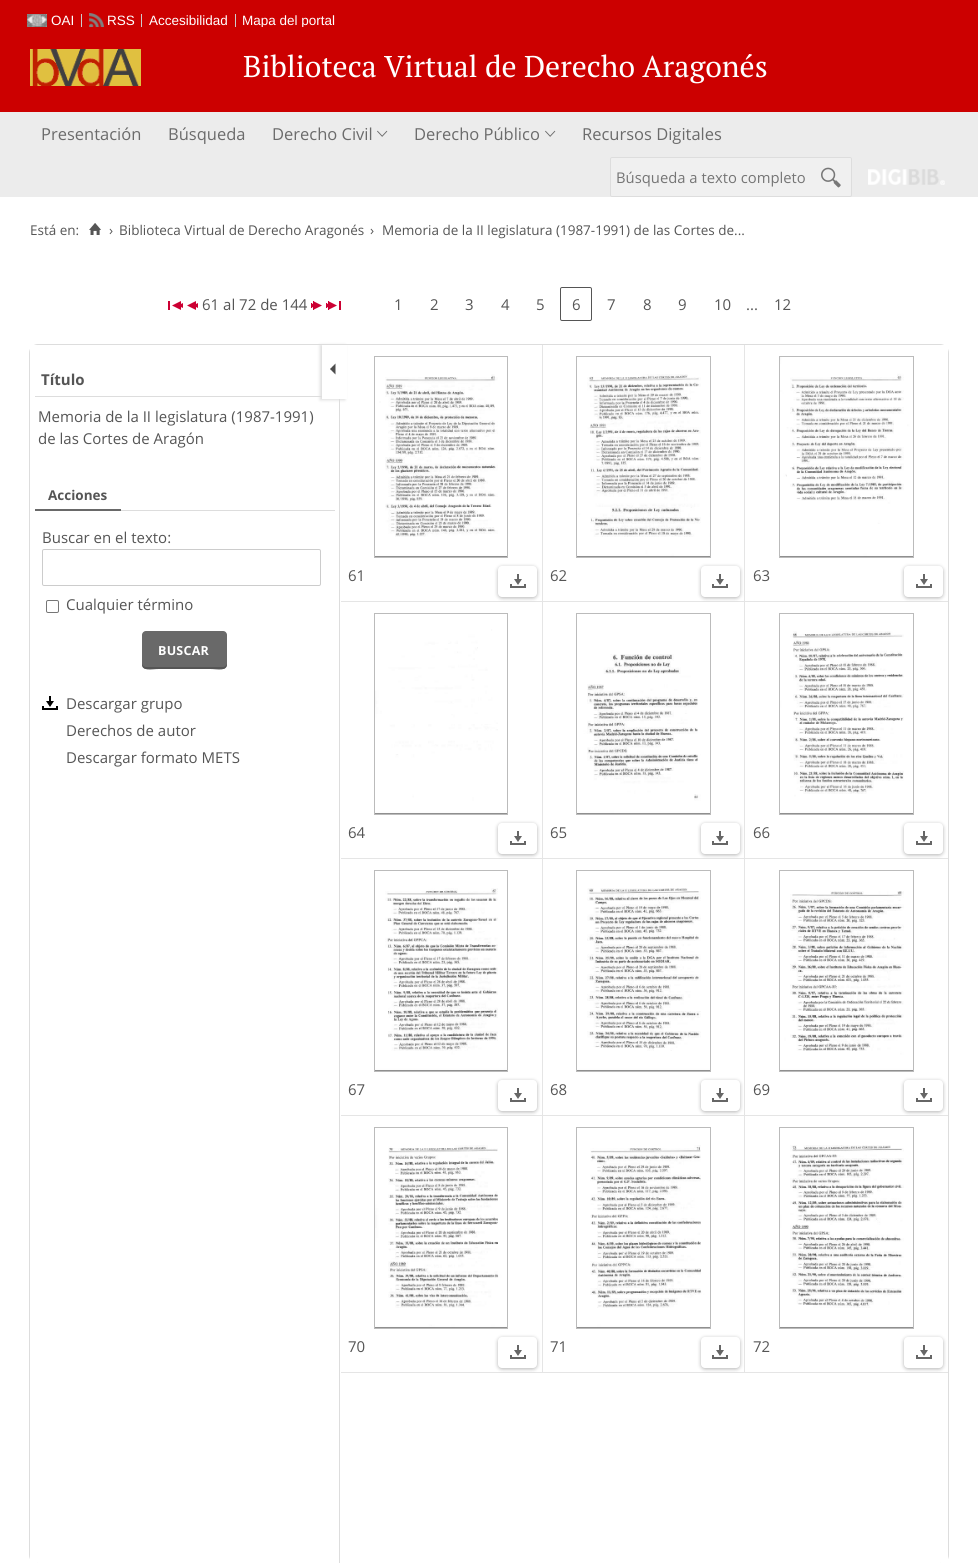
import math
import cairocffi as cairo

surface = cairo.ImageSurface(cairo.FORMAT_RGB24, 978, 1563)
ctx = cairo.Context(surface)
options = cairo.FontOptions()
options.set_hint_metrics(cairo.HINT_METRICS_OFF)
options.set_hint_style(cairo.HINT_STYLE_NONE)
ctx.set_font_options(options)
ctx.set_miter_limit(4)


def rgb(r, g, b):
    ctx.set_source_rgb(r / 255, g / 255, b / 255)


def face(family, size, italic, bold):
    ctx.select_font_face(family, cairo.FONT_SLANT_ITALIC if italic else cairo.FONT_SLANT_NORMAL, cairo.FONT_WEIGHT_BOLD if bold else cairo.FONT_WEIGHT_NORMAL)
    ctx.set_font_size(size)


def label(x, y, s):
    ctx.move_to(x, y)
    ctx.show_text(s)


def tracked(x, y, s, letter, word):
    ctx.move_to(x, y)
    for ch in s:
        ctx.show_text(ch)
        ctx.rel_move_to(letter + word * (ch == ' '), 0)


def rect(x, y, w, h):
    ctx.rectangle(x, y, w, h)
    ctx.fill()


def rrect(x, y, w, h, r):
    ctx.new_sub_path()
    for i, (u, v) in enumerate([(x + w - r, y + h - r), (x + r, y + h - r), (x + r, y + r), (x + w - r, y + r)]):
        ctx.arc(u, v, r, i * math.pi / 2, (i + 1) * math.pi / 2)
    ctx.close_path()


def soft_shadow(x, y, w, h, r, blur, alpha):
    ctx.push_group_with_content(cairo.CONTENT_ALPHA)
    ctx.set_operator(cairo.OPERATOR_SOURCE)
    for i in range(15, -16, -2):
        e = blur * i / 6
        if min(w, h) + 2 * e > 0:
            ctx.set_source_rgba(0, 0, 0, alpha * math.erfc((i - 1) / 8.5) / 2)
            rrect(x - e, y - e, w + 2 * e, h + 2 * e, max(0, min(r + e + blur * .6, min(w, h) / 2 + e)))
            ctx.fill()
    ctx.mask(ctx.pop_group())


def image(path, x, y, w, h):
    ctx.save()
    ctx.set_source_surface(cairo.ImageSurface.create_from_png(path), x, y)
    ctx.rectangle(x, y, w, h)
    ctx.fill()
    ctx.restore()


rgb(255, 255, 255)
ctx.paint()
rgb(204, 0, 0)
rect(0, 0, 978, 27)
image('image0.png', 27, 14, 20, 13)
face('Liberation Sans', 13.5, 0, 0)
rgb(255, 255, 255)
label(51, 25, 'OAI')
rgb(204, 204, 204)
rect(81, 14, 1, 13)
image('image1.png', 89, 13, 15, 14)
rgb(255, 255, 255)
label(107, 25, 'RSS')
rgb(204, 204, 204)
rect(141, 14, 1, 13)
rgb(255, 255, 255)
label(149, 25, 'Accesibilidad')
rgb(204, 204, 204)
rect(235, 14, 1, 13)
rgb(255, 255, 255)
label(242, 25, 'Mapa del portal')
rgb(204, 0, 0)
rect(0, 27, 978, 85)
image('image2.png', 30, 49, 111, 37)
face('PT Serif', 30, 0, 0)
rgb(255, 255, 255)
label(243, 77, 'Biblioteca Virtual de Derecho Aragonés')
rgb(236, 236, 236)
rect(0, 112, 978, 85)
face('Open Sans', 16.5, 0, 0)
rgb(107, 107, 107)
label(41, 140, 'Presentación')
label(168, 140, 'Búsqueda')
label(272, 140, 'Derecho Civil')
image('image3.png', 377, 130, 11, 7)
label(414, 140, 'Derecho Público')
image('image3.png', 545, 130, 11, 7)
label(582, 140, 'Recursos Digitales')
rgb(240, 240, 240)
rrect(610.5, 157.5, 241, 39, 1.5)
ctx.fill_preserve()
rgb(221, 221, 221)
ctx.set_line_width(1)
ctx.stroke()
face('Open Sans', 14.8, 0, 0)
rgb(117, 117, 117)
label(616, 183, 'Búsqueda a texto completo')
image('image4.png', 821, 167, 20, 21)
image('image5.png', 868, 169, 77, 16)
face('Open Sans', 13.5, 0, 0)
rgb(85, 85, 85)
label(30, 235, 'Está en:')
image('image6.png', 89, 223, 12, 12)
label(109, 235, '›')
label(119, 235, 'Biblioteca Virtual de Derecho Aragonés')
label(370, 235, '›')
label(382, 235, 'Memoria de la II legislatura (1987-1991) de las Cortes de...')
image('image7.png', 168, 301, 15, 9)
image('image8.png', 187, 301, 11, 9)
face('Open Sans', 15, 0, 0)
label(202, 310, '61 al 72 de 144')
image('image9.png', 311, 301, 11, 9)
image('image10.png', 326, 301, 15, 9)
label(394, 310, '1')
label(430, 310, '2')
label(465, 310, '3')
label(501, 310, '4')
label(536, 310, '5')
rrect(560.5, 287.5, 31, 33, 1.5)
ctx.stroke()
label(572, 310, '6')
label(607, 310, '7')
label(643, 310, '8')
label(678, 310, '9')
label(714, 310, '10')
label(746, 310, '...')
label(774, 310, '12')
rrect(29.5, 344.5, 919, 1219, 8.5)
rgb(221, 221, 221)
ctx.stroke()
rgb(255, 255, 255)
rect(30, 345, 7, 1218)
rgb(221, 221, 221)
rect(339, 399, 1, 1164)
rect(35, 396, 287, 1)
face('Open Sans', 15, 0, 1)
rgb(85, 85, 85)
label(41, 385, 'Título')
face('Open Sans', 15, 0, 0)
label(38, 422, 'Memoria de la II legislatura (1987-1991)')
label(38, 444, 'de las Cortes de Aragón')
rgb(221, 221, 221)
rect(121, 510, 214, 1)
rgb(105, 105, 105)
rect(35, 509, 86, 2)
face('Open Sans', 13.5, 0, 1)
rgb(85, 85, 85)
label(48, 500, 'Acciones')
face('Open Sans', 15, 0, 0)
label(42, 543, 'Buscar en el texto:')
rrect(42.5, 549.5, 278, 36, 1.5)
rgb(204, 204, 204)
ctx.stroke()
rrect(46.5, 600.5, 12, 12, 1.5)
rgb(118, 118, 118)
ctx.stroke()
rgb(85, 85, 85)
label(66, 610, 'Cualquier término')
rgb(105, 105, 105)
rrect(142, 631, 85, 38, 4)
ctx.fill()
rgb(85, 85, 85)
ctx.new_path()
ctx.move_to(142, 663)
ctx.curve_to(142, 672, 151, 669, 159, 669)
ctx.line_to(210, 669)
ctx.curve_to(218, 669, 227, 672, 227, 663)
ctx.curve_to(227, 665, 225, 667, 223, 667)
ctx.line_to(146, 667)
ctx.curve_to(144, 667, 142, 665, 142, 663)
ctx.close_path()
ctx.fill()
face('Open Sans', 12.5, 0, 1)
rgb(255, 255, 255)
tracked(158, 655, 'BUSCAR', 0.25, 0)
image('image11.png', 42, 696, 16, 14)
face('Open Sans', 15, 0, 0)
rgb(85, 85, 85)
label(66, 709, 'Descargar grupo')
label(66, 736, 'Derechos de autor')
label(66, 763, 'Descargar formato METS')
rgb(229, 229, 229)
rect(542, 345, 1, 257)
rect(340, 601, 203, 1)
rgb(0, 0, 0)
soft_shadow(498, 567, 39, 31, 4, 2, 0.3)
rgb(229, 229, 229)
rect(542, 602, 1, 257)
rect(340, 858, 203, 1)
rgb(0, 0, 0)
soft_shadow(498, 824, 39, 31, 4, 2, 0.3)
rgb(229, 229, 229)
rect(542, 859, 1, 257)
rect(340, 1115, 203, 1)
rgb(0, 0, 0)
soft_shadow(498, 1081, 39, 31, 4, 2, 0.3)
rgb(229, 229, 229)
rect(542, 1116, 1, 257)
rect(340, 1372, 203, 1)
rgb(255, 255, 255)
rect(340, 601, 1, 772)
rgb(221, 221, 221)
soft_shadow(320, 345, 25, 55, 0, 1.5, 1)
rgb(255, 255, 255)
rect(322, 345, 25, 54)
image('image12.png', 330, 363, 6, 12)
rect(941, 345, 7, 1218)
ctx.rectangle(374.5, 356.5, 133, 201)
rgb(187, 187, 187)
ctx.stroke()
image('image13.png', 375, 374, 132, 183)
rgb(85, 85, 85)
label(348, 581, '61')
rgb(255, 255, 255)
rrect(498, 566, 39, 31, 4)
ctx.fill()
image('image14.png', 510, 574, 16, 14)
rgb(229, 229, 229)
rect(744, 345, 1, 257)
rect(543, 601, 202, 1)
ctx.rectangle(576.5, 356.5, 134, 201)
rgb(187, 187, 187)
ctx.stroke()
image('image15.png', 577, 374, 133, 183)
rgb(85, 85, 85)
label(550, 581, '62')
rgb(0, 0, 0)
soft_shadow(701, 567, 39, 31, 4, 2, 0.3)
rgb(255, 255, 255)
rrect(701, 566, 39, 31, 4)
ctx.fill()
image('image14.png', 712, 574, 16, 14)
rgb(229, 229, 229)
rect(745, 601, 203, 1)
ctx.rectangle(779.5, 356.5, 134, 201)
rgb(187, 187, 187)
ctx.stroke()
image('image16.png', 780, 357, 133, 200)
rgb(85, 85, 85)
label(753, 581, '63')
rgb(0, 0, 0)
soft_shadow(904, 567, 39, 31, 4, 2, 0.3)
rgb(255, 255, 255)
rrect(904, 566, 39, 31, 4)
ctx.fill()
image('image14.png', 916, 574, 16, 14)
ctx.rectangle(374.5, 613.5, 133, 201)
rgb(187, 187, 187)
ctx.stroke()
image('image17.png', 375, 629, 132, 185)
rgb(85, 85, 85)
label(348, 838, '64')
rgb(255, 255, 255)
rrect(498, 823, 39, 31, 4)
ctx.fill()
image('image14.png', 510, 831, 16, 14)
rgb(229, 229, 229)
rect(744, 602, 1, 257)
rect(543, 858, 202, 1)
ctx.rectangle(576.5, 613.5, 134, 201)
rgb(187, 187, 187)
ctx.stroke()
image('image18.png', 577, 654, 133, 160)
rgb(85, 85, 85)
label(550, 838, '65')
rgb(0, 0, 0)
soft_shadow(701, 824, 39, 31, 4, 2, 0.3)
rgb(255, 255, 255)
rrect(701, 823, 39, 31, 4)
ctx.fill()
image('image14.png', 712, 831, 16, 14)
rgb(229, 229, 229)
rect(745, 858, 203, 1)
ctx.rectangle(779.5, 613.5, 134, 201)
rgb(187, 187, 187)
ctx.stroke()
image('image19.png', 780, 631, 133, 183)
rgb(85, 85, 85)
label(753, 838, '66')
rgb(0, 0, 0)
soft_shadow(904, 824, 39, 31, 4, 2, 0.3)
rgb(255, 255, 255)
rrect(904, 823, 39, 31, 4)
ctx.fill()
image('image14.png', 916, 831, 16, 14)
ctx.rectangle(374.5, 870.5, 133, 201)
rgb(187, 187, 187)
ctx.stroke()
image('image20.png', 375, 888, 132, 183)
rgb(85, 85, 85)
label(348, 1095, '67')
rgb(255, 255, 255)
rrect(498, 1080, 39, 31, 4)
ctx.fill()
image('image14.png', 510, 1088, 16, 14)
rgb(229, 229, 229)
rect(744, 859, 1, 257)
rect(543, 1115, 202, 1)
ctx.rectangle(576.5, 870.5, 134, 201)
rgb(187, 187, 187)
ctx.stroke()
image('image21.png', 577, 888, 133, 183)
rgb(85, 85, 85)
label(550, 1095, '68')
rgb(0, 0, 0)
soft_shadow(701, 1081, 39, 31, 4, 2, 0.3)
rgb(255, 255, 255)
rrect(701, 1080, 39, 31, 4)
ctx.fill()
image('image14.png', 712, 1088, 16, 14)
rgb(229, 229, 229)
rect(745, 1115, 203, 1)
ctx.rectangle(779.5, 870.5, 134, 201)
rgb(187, 187, 187)
ctx.stroke()
image('image22.png', 780, 891, 133, 180)
rgb(85, 85, 85)
label(753, 1095, '69')
rgb(0, 0, 0)
soft_shadow(904, 1081, 39, 31, 4, 2, 0.3)
rgb(255, 255, 255)
rrect(904, 1080, 39, 31, 4)
ctx.fill()
image('image14.png', 916, 1088, 16, 14)
ctx.rectangle(374.5, 1127.5, 133, 201)
rgb(187, 187, 187)
ctx.stroke()
image('image23.png', 375, 1145, 132, 183)
rgb(85, 85, 85)
label(348, 1352, '70')
rgb(0, 0, 0)
soft_shadow(498, 1338, 39, 31, 4, 2, 0.3)
rgb(255, 255, 255)
rrect(498, 1337, 39, 31, 4)
ctx.fill()
image('image14.png', 510, 1345, 16, 14)
rgb(229, 229, 229)
rect(744, 1116, 1, 257)
rect(543, 1372, 202, 1)
ctx.rectangle(576.5, 1127.5, 134, 201)
rgb(187, 187, 187)
ctx.stroke()
image('image24.png', 577, 1145, 133, 183)
rgb(85, 85, 85)
label(550, 1352, '71')
rgb(0, 0, 0)
soft_shadow(701, 1338, 39, 31, 4, 2, 0.3)
rgb(255, 255, 255)
rrect(701, 1337, 39, 31, 4)
ctx.fill()
image('image14.png', 712, 1345, 16, 14)
rgb(229, 229, 229)
rect(745, 1372, 203, 1)
ctx.rectangle(779.5, 1127.5, 134, 201)
rgb(187, 187, 187)
ctx.stroke()
image('image25.png', 780, 1145, 133, 183)
rgb(85, 85, 85)
label(753, 1352, '72')
rgb(0, 0, 0)
soft_shadow(904, 1338, 39, 31, 4, 2, 0.3)
rgb(255, 255, 255)
rrect(904, 1337, 39, 31, 4)
ctx.fill()
image('image14.png', 916, 1345, 16, 14)
surface.write_to_png('render.png')
